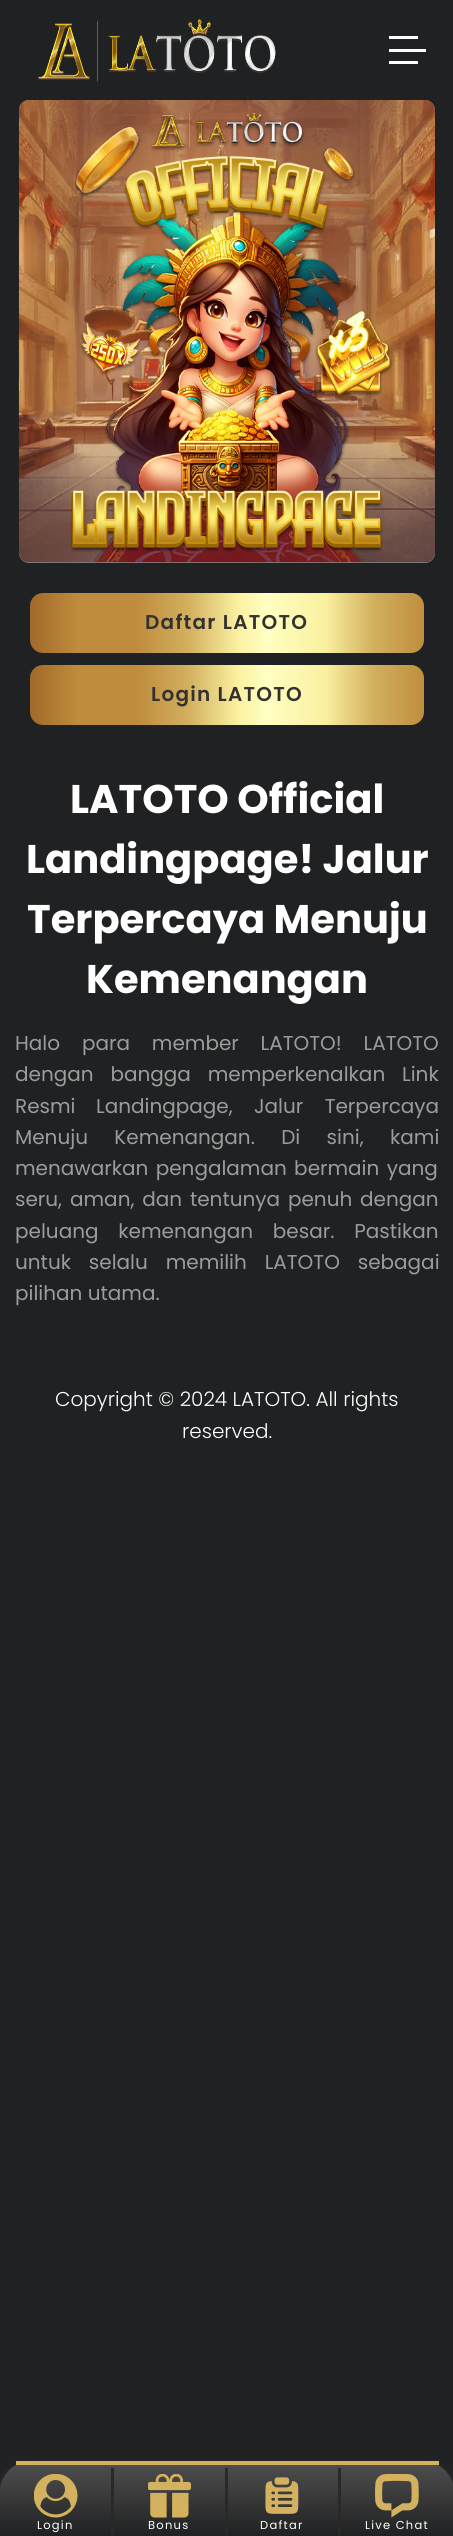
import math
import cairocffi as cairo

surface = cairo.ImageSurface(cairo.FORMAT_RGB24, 453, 2536)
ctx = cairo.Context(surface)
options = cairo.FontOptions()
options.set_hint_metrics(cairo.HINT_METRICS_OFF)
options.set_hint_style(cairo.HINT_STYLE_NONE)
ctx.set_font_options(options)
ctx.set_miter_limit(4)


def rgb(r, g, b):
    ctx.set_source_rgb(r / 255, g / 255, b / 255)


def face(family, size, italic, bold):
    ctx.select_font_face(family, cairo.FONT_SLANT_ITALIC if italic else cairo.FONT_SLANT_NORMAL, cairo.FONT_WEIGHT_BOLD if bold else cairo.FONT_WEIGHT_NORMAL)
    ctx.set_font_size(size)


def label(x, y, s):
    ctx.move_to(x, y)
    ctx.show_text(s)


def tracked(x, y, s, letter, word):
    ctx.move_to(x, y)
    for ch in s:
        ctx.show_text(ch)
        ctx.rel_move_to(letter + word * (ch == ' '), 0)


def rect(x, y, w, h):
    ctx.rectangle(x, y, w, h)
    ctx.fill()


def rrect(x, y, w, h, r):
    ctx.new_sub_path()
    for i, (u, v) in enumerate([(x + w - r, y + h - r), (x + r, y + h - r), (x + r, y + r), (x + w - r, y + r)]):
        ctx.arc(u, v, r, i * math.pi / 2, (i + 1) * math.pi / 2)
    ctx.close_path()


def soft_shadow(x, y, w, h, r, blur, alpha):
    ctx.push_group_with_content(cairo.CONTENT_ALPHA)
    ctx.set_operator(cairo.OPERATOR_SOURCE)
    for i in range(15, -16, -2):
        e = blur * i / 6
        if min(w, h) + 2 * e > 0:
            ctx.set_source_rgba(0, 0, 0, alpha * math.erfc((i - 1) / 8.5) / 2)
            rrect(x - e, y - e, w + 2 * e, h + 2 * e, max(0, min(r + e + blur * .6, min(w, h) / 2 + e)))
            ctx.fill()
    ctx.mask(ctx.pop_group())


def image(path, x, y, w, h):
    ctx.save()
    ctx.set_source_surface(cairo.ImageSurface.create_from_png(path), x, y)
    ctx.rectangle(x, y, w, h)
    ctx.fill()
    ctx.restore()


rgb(31, 33, 34)
ctx.paint()
image('image0.png', 38, 19, 238, 63)
rgb(255, 255, 255)
rect(389, 49, 37, 3)
rect(389, 36, 29, 3)
rect(389, 61, 29, 3)
rrect(24, 105, 406, 453, 5)
rgb(136, 136, 136)
ctx.set_line_width(10)
ctx.stroke()
image('image1.png', 18, 100, 417, 463)
gradient = cairo.LinearGradient(30, 623, 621, 623)
gradient.add_color_stop_rgba(0, 0.635, 0.408, 0.165, 1)
gradient.add_color_stop_rgba(0.08, 0.745, 0.549, 0.235, 1)
gradient.add_color_stop_rgba(0.18, 0.745, 0.549, 0.235, 1)
gradient.add_color_stop_rgba(0.27, 0.827, 0.694, 0.373, 1)
gradient.add_color_stop_rgba(0.35, 0.98, 0.941, 0.627, 1)
gradient.add_color_stop_rgba(0.4, 1, 1, 0.761, 1)
gradient.add_color_stop_rgba(0.5, 0.98, 0.941, 0.627, 1)
gradient.add_color_stop_rgba(0.58, 0.827, 0.694, 0.373, 1)
gradient.add_color_stop_rgba(0.67, 0.745, 0.549, 0.235, 1)
gradient.add_color_stop_rgba(0.77, 0.694, 0.482, 0.196, 1)
gradient.add_color_stop_rgba(0.83, 0.733, 0.514, 0.196, 1)
gradient.add_color_stop_rgba(0.88, 0.831, 0.635, 0.271, 1)
gradient.add_color_stop_rgba(0.93, 0.882, 0.706, 0.325, 1)
gradient.add_color_stop_rgba(1, 0.643, 0.412, 0.165, 1)
ctx.set_source(gradient)
rrect(30, 593, 394, 60, 13)
ctx.fill()
face('Poppins SemiBold', 20, 0, 0)
rgb(52, 49, 49)
tracked(145, 629, 'Daftar LATOTO', 1.25, 0)
gradient = cairo.LinearGradient(30, 695, 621, 695)
gradient.add_color_stop_rgba(0, 0.635, 0.408, 0.165, 1)
gradient.add_color_stop_rgba(0.08, 0.745, 0.549, 0.235, 1)
gradient.add_color_stop_rgba(0.18, 0.745, 0.549, 0.235, 1)
gradient.add_color_stop_rgba(0.27, 0.827, 0.694, 0.373, 1)
gradient.add_color_stop_rgba(0.35, 0.98, 0.941, 0.627, 1)
gradient.add_color_stop_rgba(0.4, 1, 1, 0.761, 1)
gradient.add_color_stop_rgba(0.5, 0.98, 0.941, 0.627, 1)
gradient.add_color_stop_rgba(0.58, 0.827, 0.694, 0.373, 1)
gradient.add_color_stop_rgba(0.67, 0.745, 0.549, 0.235, 1)
gradient.add_color_stop_rgba(0.77, 0.694, 0.482, 0.196, 1)
gradient.add_color_stop_rgba(0.83, 0.733, 0.514, 0.196, 1)
gradient.add_color_stop_rgba(0.88, 0.831, 0.635, 0.271, 1)
gradient.add_color_stop_rgba(0.93, 0.882, 0.706, 0.325, 1)
gradient.add_color_stop_rgba(1, 0.643, 0.412, 0.165, 1)
ctx.set_source(gradient)
rrect(30, 665, 394, 60, 13)
ctx.fill()
rgb(52, 49, 49)
tracked(151, 701, 'Login LATOTO', 1.25, 0)
face('Poppins', 40, 0, 1)
rgb(255, 255, 255)
label(70, 813, 'LATOTO Official')
label(26, 873, 'Landingpage! Jalur')
label(27, 933, 'Terpercaya Menuju')
label(86, 993, 'Kemenangan')
face('Poppins', 20, 0, 0)
rgb(156, 156, 156)
tracked(15, 1050, 'Halo para member LATOTO! LATOTO', 0, 16.5)
tracked(15, 1081, 'dengan bangga memperkenalkan Link', 0, 11.5)
label(15, 1113, 'Resmi')
tracked(96, 1113, 'Landingpage, Jalur Terpercaya', 0, 16)
tracked(15, 1144, 'Menuju Kemenangan. Di sini, kami', 0, 21)
tracked(15, 1175, 'menawarkan pengalaman bermain yang', 0, 2)
label(15, 1206, 'seru,')
tracked(70, 1206, 'aman, dan tentunya penuh dengan', 0, 2.5)
tracked(15, 1238, 'peluang kemenangan besar. Pastikan', 0, 14.5)
tracked(15, 1269, 'untuk selalu memilih LATOTO sebagai', 0, 12.5)
label(15, 1300, 'pilihan utama.')
face('Poppins Light', 20, 0, 0)
rgb(255, 255, 255)
label(55, 1406, 'Copyright © 2024 LATOTO. All rights')
label(182, 1438, 'reserved.')
rgb(179, 132, 201)
soft_shadow(0, 2471, 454, 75, 31, 7.5, 0.4)
rgb(57, 31, 91)
soft_shadow(0, 2464, 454, 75, 31, 1, 0.24)
ctx.save()
ctx.new_path()
ctx.move_to(31, 2461)
ctx.line_to(423, 2461)
ctx.curve_to(440, 2461, 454, 2475, 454, 2492)
ctx.line_to(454, 2536)
ctx.line_to(0, 2536)
ctx.line_to(0, 2492)
ctx.curve_to(0, 2475, 14, 2461, 31, 2461)
ctx.close_path()
ctx.clip()
gradient = cairo.LinearGradient(227, 2536, 227, 2465)
gradient.add_color_stop_rgba(0, 0.122, 0.129, 0.133, 1)
gradient.add_color_stop_rgba(1, 0.306, 0.302, 0.302, 1)
ctx.set_source(gradient)
rect(0, 2465, 453, 71)
ctx.restore()
rgb(211, 177, 95)
rect(16, 2461, 423, 4)
rgb(41, 41, 41)
rect(111, 2468, 3, 68)
image('image2.png', 34, 2474, 44, 44)
face('Poppins', 11.5, 0, 0)
rgb(255, 255, 255)
tracked(37, 2529, 'Login', 1.25, 0)
rgb(41, 41, 41)
rect(225, 2468, 3, 68)
image('image3.png', 148, 2474, 43, 44)
rgb(255, 255, 255)
tracked(148, 2529, 'Bonus', 1.25, 0)
rgb(41, 41, 41)
rect(338, 2468, 3, 68)
image('image4.png', 265, 2477, 34, 37)
rgb(255, 255, 255)
tracked(260, 2529, 'Daftar', 1.25, 0)
image('image5.png', 375, 2474, 44, 44)
tracked(365, 2529, 'Live Chat', 1.25, 0)
surface.write_to_png('render.png')
